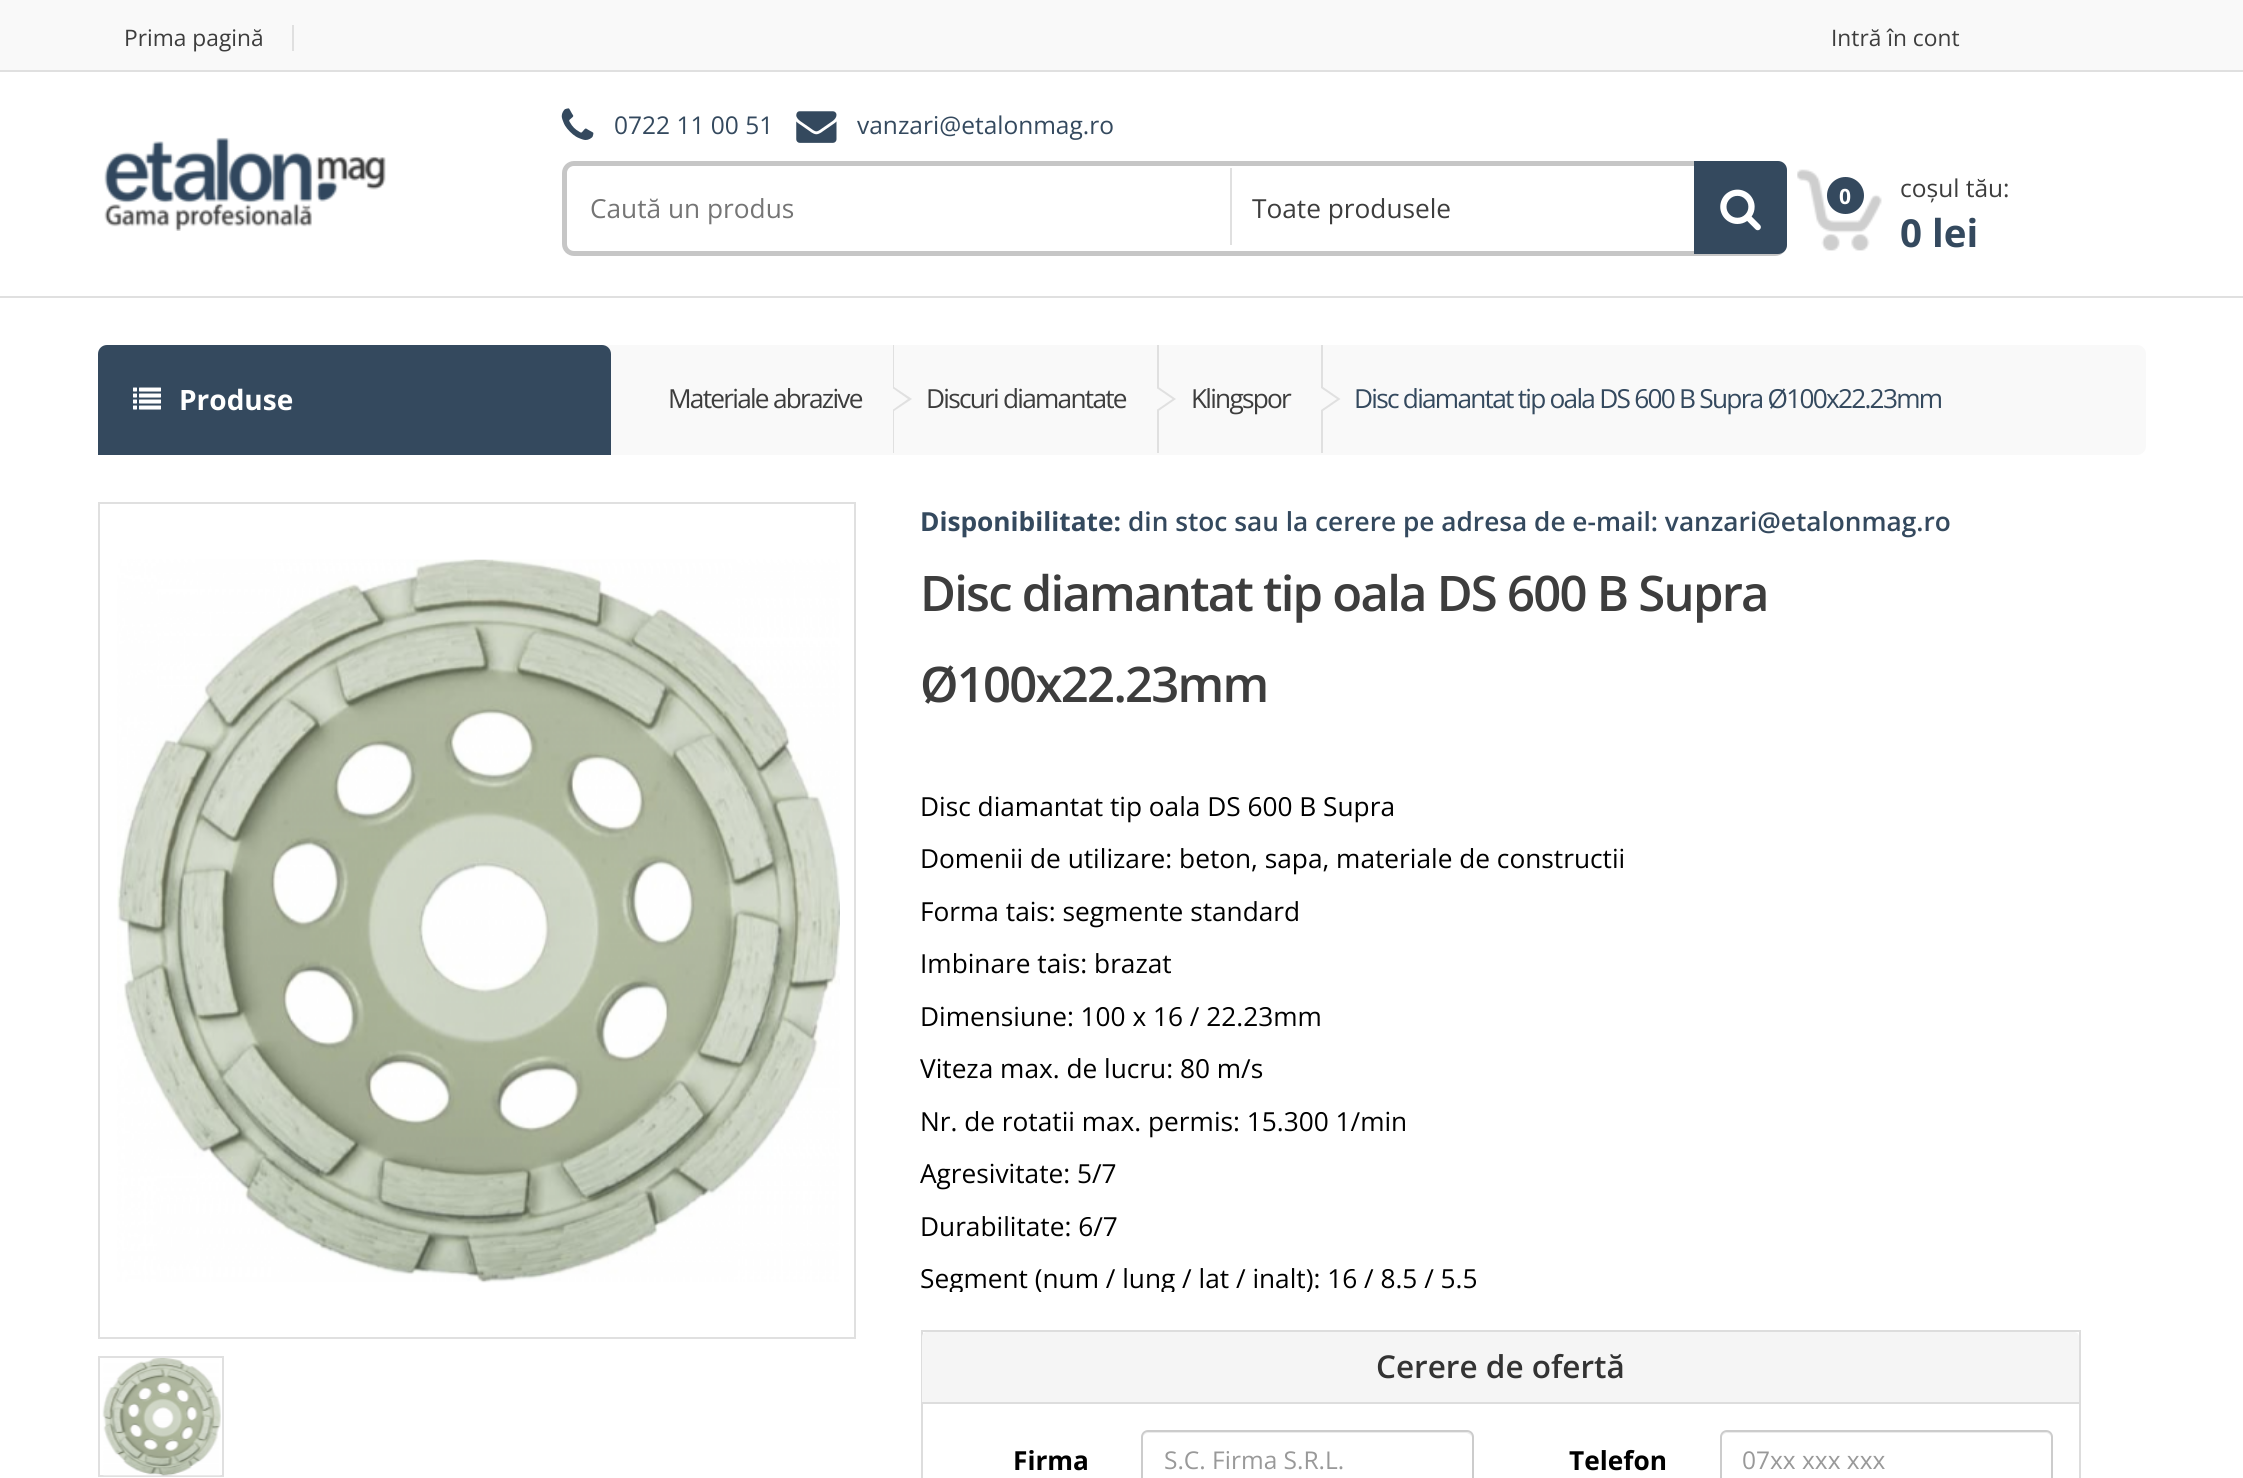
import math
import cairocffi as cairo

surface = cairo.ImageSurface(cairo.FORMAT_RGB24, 2243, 1478)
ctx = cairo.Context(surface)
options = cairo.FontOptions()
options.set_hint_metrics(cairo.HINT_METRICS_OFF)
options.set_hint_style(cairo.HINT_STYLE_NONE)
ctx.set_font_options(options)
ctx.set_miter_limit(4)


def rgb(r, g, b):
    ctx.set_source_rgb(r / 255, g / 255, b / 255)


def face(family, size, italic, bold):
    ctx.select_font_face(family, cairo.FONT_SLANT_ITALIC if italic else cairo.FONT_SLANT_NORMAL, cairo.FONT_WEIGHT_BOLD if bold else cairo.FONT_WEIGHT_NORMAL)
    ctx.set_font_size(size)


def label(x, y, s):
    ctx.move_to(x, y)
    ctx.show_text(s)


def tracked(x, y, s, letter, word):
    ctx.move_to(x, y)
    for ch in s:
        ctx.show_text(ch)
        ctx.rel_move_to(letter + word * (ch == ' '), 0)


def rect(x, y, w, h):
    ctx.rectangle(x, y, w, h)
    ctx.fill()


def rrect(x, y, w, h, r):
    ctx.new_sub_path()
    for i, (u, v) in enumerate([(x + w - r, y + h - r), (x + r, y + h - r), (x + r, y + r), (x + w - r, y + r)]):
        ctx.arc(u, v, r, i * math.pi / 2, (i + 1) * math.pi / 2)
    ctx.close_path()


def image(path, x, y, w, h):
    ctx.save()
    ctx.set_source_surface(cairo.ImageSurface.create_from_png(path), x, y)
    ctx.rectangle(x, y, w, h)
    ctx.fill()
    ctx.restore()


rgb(255, 255, 255)
ctx.paint()
rgb(249, 249, 249)
rect(0, 0, 2243, 70)
rgb(224, 224, 224)
rect(0, 70, 2243, 2)
rect(292, 25, 2, 26)
face('Open Sans', 22.75, 0, 0)
rgb(61, 61, 61)
label(124, 46, 'Prima pagină')
label(1831, 46, 'Intră în cont')
rgb(224, 224, 224)
rect(0, 296, 2243, 2)
image('image0.png', 104, 137, 282, 94)
image('image1.png', 561, 108, 33, 32)
face('Open Sans', 24.5, 0, 0)
rgb(52, 73, 94)
label(614, 134, '0722 11 00 51')
image('image2.png', 796, 111, 41, 32)
label(857, 134, 'vanzari@etalonmag.ro')
rrect(564.5, 163.5, 1220, 90, 9.5)
rgb(198, 198, 198)
ctx.set_line_width(5)
ctx.stroke()
rgb(255, 255, 255)
ctx.new_path()
ctx.move_to(576, 166)
ctx.line_to(1223, 166)
ctx.line_to(1223, 250)
ctx.line_to(576, 250)
ctx.curve_to(571, 250, 567, 246, 567, 241)
ctx.line_to(567, 175)
ctx.curve_to(567, 170, 571, 166, 576, 166)
ctx.close_path()
ctx.fill()
face('Open Sans', 26.25, 0, 0)
rgb(117, 117, 117)
label(590, 218, 'Caută un produs')
rgb(224, 224, 224)
rect(1230, 168, 2, 77)
rgb(61, 61, 61)
label(1252, 218, 'Toate produsele')
rgb(52, 73, 94)
ctx.new_path()
ctx.move_to(1694, 161)
ctx.line_to(1778, 161)
ctx.curve_to(1783, 161, 1787, 165, 1787, 170)
ctx.line_to(1787, 245)
ctx.curve_to(1787, 250, 1783, 254, 1778, 254)
ctx.line_to(1694, 254)
ctx.close_path()
ctx.fill()
image('image3.png', 1720, 189, 41, 42)
image('image4.png', 1797, 169, 85, 82)
ctx.arc(1845.5, 195.5, 18.5, 0, 2 * math.pi)
ctx.fill()
face('Open Sans', 21, 0, 1)
rgb(255, 255, 255)
label(1839, 204, '0')
face('Open Sans', 24.5, 0, 0)
rgb(61, 61, 61)
label(1900, 197, 'coșul tău:')
face('Open Sans', 38.5, 0, 1)
rgb(52, 73, 94)
label(1900, 247, '0 lei')
rgb(249, 249, 249)
rrect(98, 345, 2048, 110, 9)
ctx.fill()
rgb(52, 73, 94)
ctx.new_path()
ctx.move_to(107, 345)
ctx.line_to(602, 345)
ctx.curve_to(607, 345, 611, 349, 611, 354)
ctx.line_to(611, 455)
ctx.line_to(98, 455)
ctx.line_to(98, 354)
ctx.curve_to(98, 349, 102, 345, 107, 345)
ctx.close_path()
ctx.fill()
image('image5.png', 133, 387, 28, 23)
face('Open Sans', 28, 0, 1)
rgb(255, 255, 255)
label(179, 410, 'Produse')
rgb(224, 224, 224)
rect(893, 345, 1, 108)
ctx.new_path()
ctx.move_to(894, 411)
ctx.line_to(894, 387)
ctx.line_to(912, 399)
ctx.close_path()
ctx.fill()
rgb(249, 249, 249)
ctx.new_path()
ctx.move_to(891, 411)
ctx.line_to(891, 387)
ctx.line_to(908, 399)
ctx.close_path()
ctx.fill()
face('Open Sans', 26.25, 0, 0)
rgb(61, 61, 61)
tracked(668, 408, 'Materiale abrazive', -1.75, 0)
rgb(224, 224, 224)
rect(1157, 345, 2, 108)
ctx.new_path()
ctx.move_to(1158.5, 411)
ctx.line_to(1158.5, 387)
ctx.line_to(1176, 399)
ctx.close_path()
ctx.fill()
rgb(249, 249, 249)
ctx.new_path()
ctx.move_to(1155, 411)
ctx.line_to(1155, 387)
ctx.line_to(1172.5, 399)
ctx.close_path()
ctx.fill()
rgb(61, 61, 61)
tracked(926, 408, 'Discuri diamantate', -1.75, 0)
rgb(224, 224, 224)
rect(1321, 345, 2, 108)
ctx.new_path()
ctx.move_to(1323, 411)
ctx.line_to(1323, 387)
ctx.line_to(1340.5, 399)
ctx.close_path()
ctx.fill()
rgb(249, 249, 249)
ctx.new_path()
ctx.move_to(1319.5, 411)
ctx.line_to(1319.5, 387)
ctx.line_to(1337, 399)
ctx.close_path()
ctx.fill()
rgb(61, 61, 61)
tracked(1191, 408, 'Klingspor', -1.75, 0)
rgb(52, 73, 94)
tracked(1354, 408, 'Disc diamantat tip oala DS 600 B Supra Ø100x22.23mm', -1.75, 0)
ctx.rectangle(99, 503, 756, 835)
rgb(224, 224, 224)
ctx.set_line_width(2)
ctx.stroke()
image('image6.png', 117, 559, 723, 724)
ctx.rectangle(99, 1357, 124, 119)
ctx.stroke()
image('image7.png', 102, 1358, 119, 118)
face('Open Sans', 26.25, 0, 1)
rgb(52, 73, 94)
label(920, 531, 'Disponibilitate:')
face('Open Sans SemiBold', 26.25, 0, 0)
label(1128, 531, 'din stoc sau la cerere pe adresa de e-mail: vanzari@etalonmag.ro')
face('Open Sans SemiBold', 49, 0, 0)
rgb(61, 61, 61)
tracked(920, 611, 'Disc diamantat tip oala DS 600 B Supra', -1.75, 0)
tracked(920, 702, 'Ø100x22.23mm', -1.75, 0)
face('Open Sans', 26.25, 0, 0)
rgb(0, 0, 0)
label(920, 816, 'Disc diamantat tip oala DS 600 B Supra')
label(920, 868, 'Domenii de utilizare: beton, sapa, materiale de constructii')
label(920, 921, 'Forma tais: segmente standard')
label(920, 973, 'Imbinare tais: brazat')
label(920, 1026, 'Dimensiune: 100 x 16 / 22.23mm')
label(920, 1078, 'Viteza max. de lucru: 80 m/s')
label(920, 1131, 'Nr. de rotatii max. permis: 15.300 1/min')
label(920, 1183, 'Agresivitate: 5/7')
label(920, 1236, 'Durabilitate: 6/7')
ctx.save()
ctx.rectangle(921, 767, 1160, 525)
ctx.clip()
label(920, 1288, 'Segment (num / lung / lat / inalt): 16 / 8.5 / 5.5')
ctx.restore()
ctx.rectangle(922, 1331, 1158, 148)
rgb(221, 221, 221)
ctx.stroke()
rgb(245, 245, 245)
ctx.new_path()
ctx.move_to(927, 1332)
ctx.line_to(2074, 1332)
ctx.curve_to(2077, 1332, 2079, 1334, 2079, 1337)
ctx.line_to(2079, 1404)
ctx.line_to(922, 1404)
ctx.line_to(922, 1337)
ctx.curve_to(922, 1334, 924, 1332, 927, 1332)
ctx.close_path()
ctx.fill()
rgb(221, 221, 221)
rect(922, 1402, 1157, 2)
face('Open Sans SemiBold', 31.5, 0, 0)
rgb(51, 51, 51)
label(1376, 1378, 'Cerere de ofertă')
face('Open Sans', 26.25, 0, 1)
rgb(0, 0, 0)
label(1013, 1470, 'Firma')
rgb(236, 236, 236)
ctx.new_path()
ctx.move_to(1148, 1433)
ctx.line_to(1466, 1433)
ctx.curve_to(1469, 1433, 1472, 1436, 1472, 1438)
ctx.curve_to(1472, 1435, 1470, 1432, 1467, 1432)
ctx.line_to(1148, 1432)
ctx.curve_to(1145, 1432, 1143, 1435, 1143, 1438)
ctx.curve_to(1143, 1436, 1145, 1433, 1148, 1433)
ctx.close_path()
ctx.fill()
rrect(1142, 1431, 331, 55, 6)
rgb(204, 204, 204)
ctx.stroke()
face('Open Sans', 24.5, 0, 0)
rgb(153, 153, 153)
label(1164, 1469, 'S.C. Firma S.R.L.')
face('Open Sans', 26.25, 0, 1)
rgb(0, 0, 0)
label(1569, 1470, 'Telefon')
rgb(236, 236, 236)
ctx.new_path()
ctx.move_to(1727, 1433)
ctx.line_to(2046, 1433)
ctx.curve_to(2049, 1433, 2051, 1436, 2051, 1438)
ctx.curve_to(2051, 1435, 2049, 1432, 2046, 1432)
ctx.line_to(1727, 1432)
ctx.curve_to(1724, 1432, 1722, 1435, 1722, 1438)
ctx.curve_to(1722, 1436, 1724, 1433, 1727, 1433)
ctx.close_path()
ctx.fill()
rrect(1721, 1431, 331, 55, 6)
rgb(204, 204, 204)
ctx.stroke()
face('Open Sans', 24.5, 0, 0)
rgb(153, 153, 153)
label(1742, 1469, '07xx xxx xxx')
surface.write_to_png('render.png')
